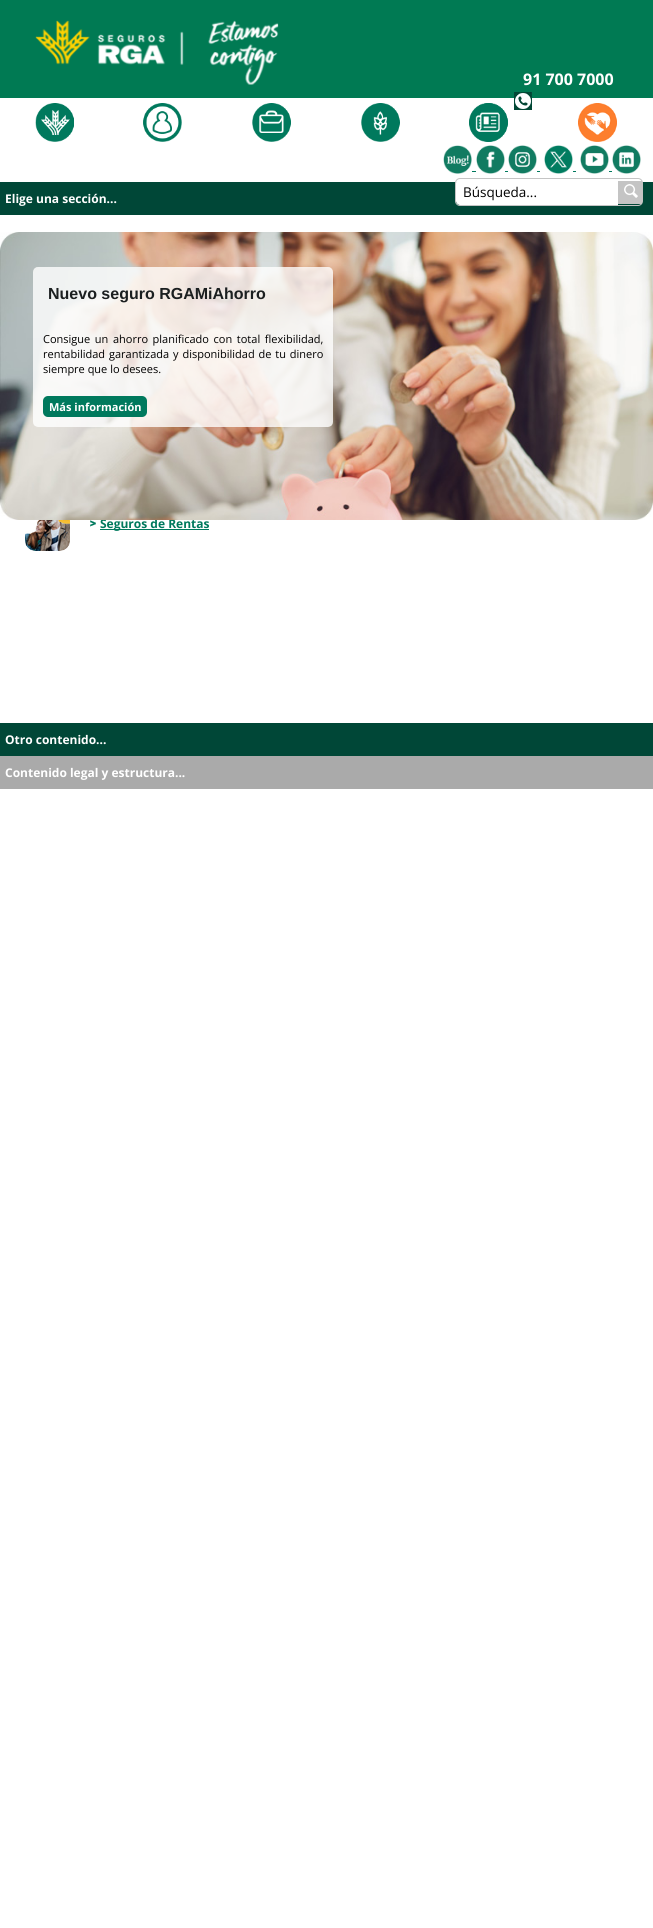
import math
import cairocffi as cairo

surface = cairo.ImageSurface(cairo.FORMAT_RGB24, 653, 1928)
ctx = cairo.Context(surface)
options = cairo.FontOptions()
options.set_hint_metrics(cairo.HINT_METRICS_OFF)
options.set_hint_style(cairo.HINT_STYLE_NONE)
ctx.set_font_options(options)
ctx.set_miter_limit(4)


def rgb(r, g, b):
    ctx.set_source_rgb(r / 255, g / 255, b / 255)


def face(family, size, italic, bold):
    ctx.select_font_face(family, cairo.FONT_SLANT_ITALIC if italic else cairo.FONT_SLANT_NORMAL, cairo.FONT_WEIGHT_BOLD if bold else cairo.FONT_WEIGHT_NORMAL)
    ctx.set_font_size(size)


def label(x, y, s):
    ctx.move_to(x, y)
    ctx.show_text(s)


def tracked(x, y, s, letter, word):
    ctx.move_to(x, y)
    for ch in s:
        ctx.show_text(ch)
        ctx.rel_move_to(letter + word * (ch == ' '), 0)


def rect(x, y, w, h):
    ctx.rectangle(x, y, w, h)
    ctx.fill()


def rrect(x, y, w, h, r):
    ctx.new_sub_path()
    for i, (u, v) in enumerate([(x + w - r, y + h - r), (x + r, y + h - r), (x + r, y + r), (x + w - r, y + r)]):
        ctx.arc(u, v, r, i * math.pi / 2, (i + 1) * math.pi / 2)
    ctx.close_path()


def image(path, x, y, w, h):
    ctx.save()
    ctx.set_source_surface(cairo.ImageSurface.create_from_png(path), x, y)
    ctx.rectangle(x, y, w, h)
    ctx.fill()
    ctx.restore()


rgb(255, 255, 255)
ctx.paint()
rgb(0, 122, 83)
rect(0, 0, 653, 98)
image('image0.png', 35, 20, 244, 65)
face('Open Sans', 16, 0, 1)
rgb(255, 255, 255)
label(523, 85, '91 700 7000')
image('image1.png', 514, 92, 18, 18)
rgb(0, 71, 55)
rect(0, 182, 653, 33)
face('Open Sans', 12, 0, 1)
rgb(255, 255, 255)
label(5, 203, 'Elige una sección...')
rgb(0, 121, 93)
rect(100, 529, 109, 1)
label(100, 528, 'Seguros de Rentas')
image('image2.png', 0, 232, 653, 288)
image('image3.png', 33, 267, 300, 160)
face('Liberation Sans', 16, 0, 1)
rgb(27, 31, 32)
label(48, 299, 'Nuevo seguro RGAMiAhorro')
face('Open Sans', 11, 0, 0)
rgb(0, 0, 0)
tracked(43, 343, 'Consigue un ahorro planificado con total flexibilidad,', 0, 1.75)
tracked(43, 358, 'rentabilidad garantizada y disponibilidad de tu dinero', 0, 1)
label(43, 373, 'siempre que lo desees.')
rgb(0, 121, 93)
rrect(43, 396, 104, 21, 5)
ctx.fill()
face('Open Sans', 11, 0, 1)
rgb(255, 255, 255)
label(49, 411, 'Más información')
image('image4.png', 25, 520, 45, 31)
image('image5.png', 90, 520, 6, 7)
image('image6.png', 35, 103, 39, 39)
image('image7.png', 143, 103, 39, 39)
image('image8.png', 252, 103, 39, 39)
image('image9.png', 361, 103, 39, 39)
image('image10.png', 469, 103, 39, 39)
image('image11.png', 578, 103, 39, 39)
image('image12.png', 443, 145, 29, 29)
rgb(0, 121, 93)
rect(472, 171, 4, 1)
image('image13.png', 476, 145, 29, 29)
rect(505, 171, 3, 1)
image('image14.png', 508, 145, 29, 29)
rect(537, 171, 3, 1)
image('image15.png', 544, 145, 29, 29)
rect(573, 171, 3, 1)
image('image16.png', 580, 145, 29, 29)
rect(609, 171, 3, 1)
image('image17.png', 612, 145, 29, 29)
rgb(255, 255, 255)
ctx.new_path()
ctx.move_to(460, 179)
ctx.line_to(618, 179)
ctx.line_to(618, 205)
ctx.line_to(460, 205)
ctx.curve_to(458, 205, 456, 203, 456, 201)
ctx.line_to(456, 183)
ctx.curve_to(456, 181, 458, 179, 460, 179)
ctx.close_path()
ctx.fill()
rrect(455.5, 178.5, 187, 27, 4.5)
rgb(196, 196, 196)
ctx.set_line_width(1)
ctx.stroke()
rect(618, 181, 24, 23)
face('Open Sans', 13.5, 0, 0)
rgb(0, 0, 0)
label(463, 197, 'Búsqueda...')
image('image18.png', 624, 184, 14, 14)
rgb(170, 170, 170)
rect(0, 756, 653, 33)
rgb(0, 71, 55)
rect(0, 723, 653, 33)
face('Open Sans', 12, 0, 1)
rgb(255, 255, 255)
label(5, 744, 'Otro contenido...')
label(5, 777, 'Contenido legal y estructura...')
surface.write_to_png('render.png')
